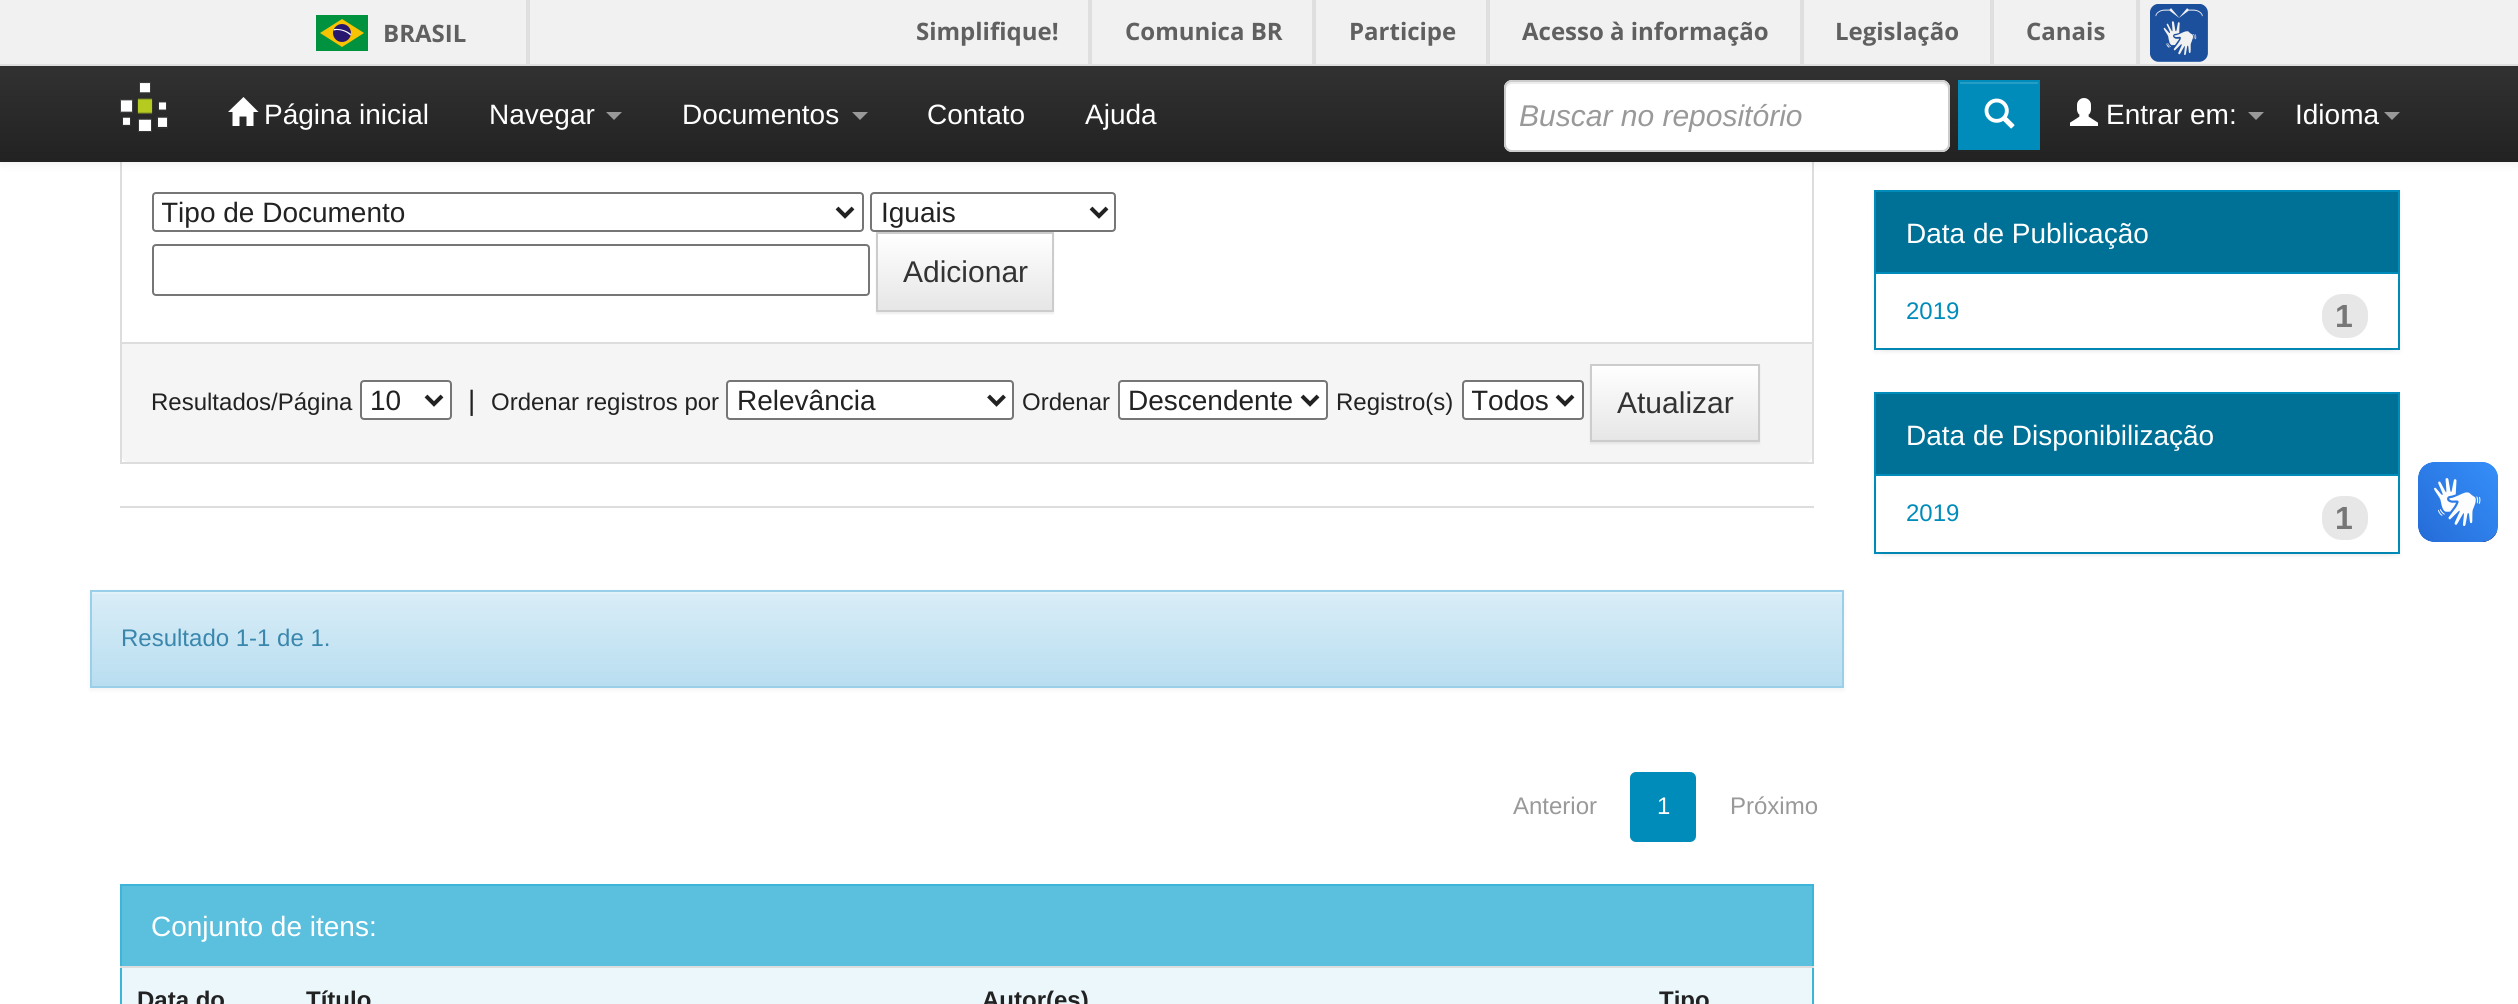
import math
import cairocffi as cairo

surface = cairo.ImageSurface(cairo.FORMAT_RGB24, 2518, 1004)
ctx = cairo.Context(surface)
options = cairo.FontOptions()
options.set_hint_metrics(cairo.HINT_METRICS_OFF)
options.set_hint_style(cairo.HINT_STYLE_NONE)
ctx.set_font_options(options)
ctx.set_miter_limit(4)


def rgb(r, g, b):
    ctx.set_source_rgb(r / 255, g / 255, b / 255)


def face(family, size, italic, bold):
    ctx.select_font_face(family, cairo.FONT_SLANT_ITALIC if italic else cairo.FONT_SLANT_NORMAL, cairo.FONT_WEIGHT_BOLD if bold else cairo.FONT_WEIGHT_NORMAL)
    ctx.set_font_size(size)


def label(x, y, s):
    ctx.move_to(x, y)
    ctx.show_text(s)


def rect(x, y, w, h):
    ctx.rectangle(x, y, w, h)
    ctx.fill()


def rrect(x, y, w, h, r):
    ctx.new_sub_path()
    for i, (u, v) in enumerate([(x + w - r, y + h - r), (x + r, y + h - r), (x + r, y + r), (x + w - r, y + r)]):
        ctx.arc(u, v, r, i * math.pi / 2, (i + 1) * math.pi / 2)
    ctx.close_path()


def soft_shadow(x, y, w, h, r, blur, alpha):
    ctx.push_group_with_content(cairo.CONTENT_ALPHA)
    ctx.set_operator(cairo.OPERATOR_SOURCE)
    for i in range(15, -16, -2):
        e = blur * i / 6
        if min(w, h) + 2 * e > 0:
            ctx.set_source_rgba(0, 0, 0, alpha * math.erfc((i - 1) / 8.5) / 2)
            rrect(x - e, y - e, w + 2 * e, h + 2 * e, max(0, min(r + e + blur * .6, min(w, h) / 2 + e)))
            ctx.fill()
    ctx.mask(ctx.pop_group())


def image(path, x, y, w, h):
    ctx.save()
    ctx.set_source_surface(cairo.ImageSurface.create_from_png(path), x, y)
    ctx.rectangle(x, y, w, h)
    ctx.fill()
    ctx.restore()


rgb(255, 255, 255)
ctx.paint()
ctx.rectangle(121, -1, 1692, 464)
rgb(221, 221, 221)
ctx.stroke()
rgb(0, 0, 0)
soft_shadow(0, 2, 2518, 162, 0, 5, 0.07)
gradient = cairo.LinearGradient(1259, 0, 1259, 162)
gradient.add_color_stop_rgba(0, 0.235, 0.235, 0.235, 1)
gradient.add_color_stop_rgba(1, 0.133, 0.133, 0.133, 1)
ctx.set_source(gradient)
rect(0, 66, 2518, 96)
rgb(241, 241, 241)
rect(0, 0, 2518, 64)
rgb(223, 223, 223)
rect(0, 64, 2518, 2)
rect(526, 0, 4, 64)
rgb(0, 146, 63)
rect(316, 15, 52, 36)
rgb(248, 195, 0)
ctx.new_path()
ctx.move_to(342, 19)
ctx.line_to(320, 33)
ctx.line_to(342, 47)
ctx.line_to(364, 33)
ctx.close_path()
ctx.fill()
rgb(40, 22, 111)
ctx.arc(342, 33, 9, 0, 2 * math.pi)
ctx.fill()
rgb(255, 255, 255)
ctx.new_path()
ctx.move_to(336.5, 30)
ctx.curve_to(342, 30, 347, 32, 350.5, 35.5)
ctx.line_to(351, 34)
ctx.curve_to(346, 30, 340, 28.5, 334, 29)
ctx.line_to(333.5, 30.5)
ctx.close_path()
ctx.fill()
face('Open Sans', 24, 0, 1)
rgb(96, 96, 96)
label(383, 42, 'BRASIL')
rgb(223, 223, 223)
rect(1088, 0, 4, 64)
rgb(96, 96, 96)
label(916, 40, 'Simplifique!')
rgb(223, 223, 223)
rect(1312, 0, 4, 64)
rgb(96, 96, 96)
label(1125, 40, 'Comunica BR')
rgb(223, 223, 223)
rect(1486, 0, 4, 64)
rgb(96, 96, 96)
label(1349, 40, 'Participe')
rgb(223, 223, 223)
rect(1800, 0, 4, 64)
rgb(96, 96, 96)
label(1522, 40, 'Acesso à informação')
rgb(223, 223, 223)
rect(1990, 0, 4, 64)
rgb(96, 96, 96)
label(1835, 40, 'Legislação')
rgb(223, 223, 223)
rect(2136, 0, 4, 64)
rgb(96, 96, 96)
label(2026, 40, 'Canais')
image('image0.png', 2150, 4, 58, 58)
image('image1.png', 120, 82, 48, 50)
rgb(255, 255, 255)
ctx.new_path()
ctx.move_to(258.5, 112)
ctx.line_to(253.5, 112)
ctx.line_to(253.5, 126)
ctx.line_to(246.5, 126)
ctx.line_to(246.5, 116.5)
ctx.line_to(239.5, 116.5)
ctx.line_to(239.5, 126)
ctx.line_to(232.5, 126)
ctx.line_to(232.5, 112)
ctx.line_to(228, 112)
ctx.line_to(243.5, 97)
ctx.close_path()
ctx.fill()
face('Liberation Sans', 28, 0, 0)
label(264, 124, 'Página inicial')
label(489, 124, 'Navegar')
rgb(153, 153, 153)
ctx.new_path()
ctx.move_to(606, 112)
ctx.line_to(622, 112)
ctx.line_to(614, 120)
ctx.close_path()
ctx.fill()
rgb(255, 255, 255)
label(682, 124, 'Documentos')
rgb(153, 153, 153)
ctx.new_path()
ctx.move_to(852, 112)
ctx.line_to(868, 112)
ctx.line_to(860, 120)
ctx.close_path()
ctx.fill()
rgb(255, 255, 255)
label(927, 124, 'Contato')
label(1085, 124, 'Ajuda')
rrect(1504, 80, 446, 72, 8)
ctx.fill()
rgb(236, 236, 236)
ctx.new_path()
ctx.move_to(1512, 84)
ctx.line_to(1942, 84)
ctx.curve_to(1945, 84, 1948, 87, 1948, 90)
ctx.line_to(1948, 88)
ctx.curve_to(1948, 85, 1945, 82, 1942, 82)
ctx.line_to(1512, 82)
ctx.curve_to(1509, 82, 1506, 85, 1506, 88)
ctx.line_to(1506, 90)
ctx.curve_to(1506, 87, 1509, 84, 1512, 84)
ctx.close_path()
ctx.fill()
rrect(1505, 81, 444, 70, 7)
rgb(204, 204, 204)
ctx.stroke()
ctx.save()
ctx.rectangle(1518, 98, 418, 34)
ctx.clip()
face('Liberation Sans', 30, 1, 0)
rgb(153, 153, 153)
label(1519, 126, 'Buscar no repositório')
ctx.restore()
rgb(0, 140, 186)
rect(1958, 80, 82, 70)
rgb(38, 157, 196)
rect(1960, 82, 78, 2)
image('image2.png', 1984, 98, 31, 31)
image('image3.png', 2070, 98, 28, 28)
rgb(255, 255, 255)
label(2106, 124, 'Entrar em:')
rgb(153, 153, 153)
ctx.new_path()
ctx.move_to(2248, 112)
ctx.line_to(2264, 112)
ctx.line_to(2256, 120)
ctx.close_path()
ctx.fill()
rgb(255, 255, 255)
label(2295, 124, 'Idioma')
rgb(153, 153, 153)
ctx.new_path()
ctx.move_to(2384, 112)
ctx.line_to(2400, 112)
ctx.line_to(2392, 120)
ctx.close_path()
ctx.fill()
rrect(153, 193, 710, 38, 3)
rgb(118, 118, 118)
ctx.stroke()
ctx.new_path()
ctx.move_to(837, 208)
ctx.line_to(845, 216)
ctx.line_to(853, 208)
rgb(34, 34, 34)
ctx.set_line_width(4)
ctx.stroke()
ctx.save()
ctx.rectangle(162, 194, 668, 36)
ctx.clip()
label(161, 222, 'Tipo de Documento')
ctx.restore()
rrect(871, 193, 244, 38, 3)
rgb(118, 118, 118)
ctx.set_line_width(2)
ctx.stroke()
ctx.new_path()
ctx.move_to(1091, 208)
ctx.line_to(1099, 216)
ctx.line_to(1107, 208)
rgb(34, 34, 34)
ctx.set_line_width(4)
ctx.stroke()
label(881, 222, 'Iguais')
rrect(153, 245, 716, 50, 3)
rgb(118, 118, 118)
ctx.set_line_width(2)
ctx.stroke()
rgb(0, 0, 0)
soft_shadow(876, 234, 178, 80, 0, 1, 0.07)
gradient = cairo.LinearGradient(965, 234, 965, 310)
gradient.add_color_stop_rgba(0, 1, 1, 1, 1)
gradient.add_color_stop_rgba(1, 0.902, 0.902, 0.902, 1)
ctx.set_source(gradient)
rect(878, 234, 174, 76)
ctx.rectangle(877, 233, 176, 78)
rgb(204, 204, 204)
ctx.stroke()
face('Liberation Sans', 30, 0, 0)
rgb(51, 51, 51)
label(903, 282, 'Adicionar')
rgb(245, 245, 245)
ctx.new_path()
ctx.move_to(122, 342)
ctx.line_to(1812, 342)
ctx.line_to(1812, 456)
ctx.curve_to(1812, 459.5, 1809.5, 462, 1806, 462)
ctx.line_to(128, 462)
ctx.curve_to(124.5, 462, 122, 459.5, 122, 456)
ctx.close_path()
ctx.fill()
rgb(221, 221, 221)
rect(122, 342, 1690, 2)
face('Liberation Sans', 24, 0, 0)
rgb(34, 34, 34)
label(151, 410, 'Resultados/Página')
rgb(255, 255, 255)
rrect(361, 381, 90, 38, 3)
ctx.fill_preserve()
rgb(118, 118, 118)
ctx.stroke()
ctx.new_path()
ctx.move_to(426, 396)
ctx.line_to(434, 404)
ctx.line_to(442, 396)
rgb(34, 34, 34)
ctx.set_line_width(4)
ctx.stroke()
face('Liberation Sans', 28, 0, 0)
label(370, 410, '10')
label(468, 410, '|')
face('Liberation Sans', 24, 0, 0)
label(491, 410, 'Ordenar registros por')
rgb(255, 255, 255)
rrect(727, 381, 286, 38, 3)
ctx.fill_preserve()
rgb(118, 118, 118)
ctx.set_line_width(2)
ctx.stroke()
ctx.new_path()
ctx.move_to(988.5, 396)
ctx.line_to(996.5, 404)
ctx.line_to(1004.5, 396)
rgb(34, 34, 34)
ctx.set_line_width(4)
ctx.stroke()
face('Liberation Sans', 28, 0, 0)
label(737, 410, 'Relevância')
face('Liberation Sans', 24, 0, 0)
label(1022, 410, 'Ordenar')
rgb(255, 255, 255)
rrect(1119, 381, 208, 38, 3)
ctx.fill_preserve()
rgb(118, 118, 118)
ctx.set_line_width(2)
ctx.stroke()
ctx.new_path()
ctx.move_to(1302, 396)
ctx.line_to(1310, 404)
ctx.line_to(1318, 396)
rgb(34, 34, 34)
ctx.set_line_width(4)
ctx.stroke()
face('Liberation Sans', 28, 0, 0)
label(1128, 410, 'Descendente')
face('Liberation Sans', 24, 0, 0)
label(1336, 410, 'Registro(s)')
rgb(255, 255, 255)
rrect(1463, 381, 120, 38, 3)
ctx.fill_preserve()
rgb(118, 118, 118)
ctx.set_line_width(2)
ctx.stroke()
ctx.new_path()
ctx.move_to(1557, 396)
ctx.line_to(1565, 404)
ctx.line_to(1573, 396)
rgb(34, 34, 34)
ctx.set_line_width(4)
ctx.stroke()
ctx.save()
ctx.rectangle(1472, 382, 78, 36)
ctx.clip()
face('Liberation Sans', 28, 0, 0)
label(1471, 410, 'Todos')
ctx.restore()
rgb(0, 0, 0)
soft_shadow(1590, 366, 170, 78, 0, 1, 0.07)
gradient = cairo.LinearGradient(1675, 366, 1675, 440)
gradient.add_color_stop_rgba(0, 1, 1, 1, 1)
gradient.add_color_stop_rgba(1, 0.902, 0.902, 0.902, 1)
ctx.set_source(gradient)
rect(1592, 366, 166, 73)
ctx.rectangle(1591, 365, 168, 76)
rgb(204, 204, 204)
ctx.set_line_width(2)
ctx.stroke()
face('Liberation Sans', 30, 0, 0)
rgb(51, 51, 51)
label(1617, 413, 'Atualizar')
rgb(221, 221, 221)
rect(120, 506, 1694, 2)
rgb(0, 0, 0)
soft_shadow(90, 592, 1754, 98, 0, 2, 0.05)
gradient = cairo.LinearGradient(967, 592, 967, 686)
gradient.add_color_stop_rgba(0, 0.851, 0.929, 0.969, 1)
gradient.add_color_stop_rgba(1, 0.725, 0.871, 0.941, 1)
ctx.set_source(gradient)
rect(92, 594, 1750, 92)
rgb(226, 242, 249)
rect(92, 592, 1750, 2)
ctx.rectangle(91, 591, 1752, 96)
rgb(154, 207, 234)
ctx.stroke()
face('Liberation Sans', 24, 0, 0)
rgb(58, 135, 173)
label(121, 646, 'Resultado 1-1 de 1.')
rgb(153, 153, 153)
label(1513, 814, 'Anterior')
rgb(0, 140, 186)
rrect(1630, 772, 66, 70, 6)
ctx.fill()
rgb(255, 255, 255)
label(1657, 814, '1')
rgb(153, 153, 153)
label(1730, 814, 'Próximo')
ctx.rectangle(121, 885, 1692, 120)
rgb(61, 181, 216)
ctx.stroke()
rgb(91, 192, 222)
rect(122, 886, 1690, 80)
face('Liberation Sans', 28, 0, 0)
rgb(255, 255, 255)
label(151, 936, 'Conjunto de itens:')
rgb(235, 247, 251)
rect(122, 968, 1690, 36)
face('Liberation Sans', 24, 0, 1)
rgb(34, 34, 34)
label(137, 1008, 'Data do')
label(306, 1008, 'Título')
label(982, 1008, 'Autor(es)')
rgb(221, 221, 221)
rect(120, 966, 1694, 2)
rgb(34, 34, 34)
label(1659, 1008, 'Tipo')
rgb(0, 0, 0)
soft_shadow(1874, 192, 526, 160, 0, 2, 0.05)
ctx.rectangle(1875, 191, 524, 158)
rgb(0, 140, 186)
ctx.stroke()
rgb(0, 113, 150)
rect(1876, 192, 522, 80)
rgb(0, 140, 186)
rect(1876, 272, 522, 2)
face('Liberation Sans', 28, 0, 0)
rgb(255, 255, 255)
label(1906, 243, 'Data de Publicação')
rgb(0, 0, 0)
soft_shadow(1876, 276, 522, 74, 8, 2, 0.07)
rgb(255, 255, 255)
rect(1876, 274, 522, 74)
face('Liberation Sans', 24, 0, 0)
rgb(0, 140, 186)
label(1906, 319, '2019')
rgb(231, 231, 231)
rrect(2322, 294, 46, 44, 20)
ctx.fill()
face('Liberation Sans', 32, 0, 1)
rgb(119, 119, 119)
label(2335, 327, '1')
rgb(0, 0, 0)
soft_shadow(1874, 394, 526, 162, 0, 2, 0.05)
ctx.rectangle(1875, 393, 524, 160)
rgb(0, 140, 186)
ctx.stroke()
rgb(0, 113, 150)
rect(1876, 394, 522, 80)
rgb(0, 140, 186)
rect(1876, 474, 522, 2)
face('Liberation Sans', 28, 0, 0)
rgb(255, 255, 255)
label(1906, 445, 'Data de Disponibilização')
rgb(0, 0, 0)
soft_shadow(1876, 478, 522, 76, 8, 2, 0.07)
rgb(255, 255, 255)
rect(1876, 476, 522, 76)
face('Liberation Sans', 24, 0, 0)
rgb(0, 140, 186)
label(1906, 521, '2019')
rgb(231, 231, 231)
rrect(2322, 496, 46, 44, 20)
ctx.fill()
face('Liberation Sans', 32, 0, 1)
rgb(119, 119, 119)
label(2335, 529, '1')
image('image4.png', 2418, 462, 80, 80)
image('image5.png', 2418, 462, 80, 80)
surface.write_to_png('render.png')
